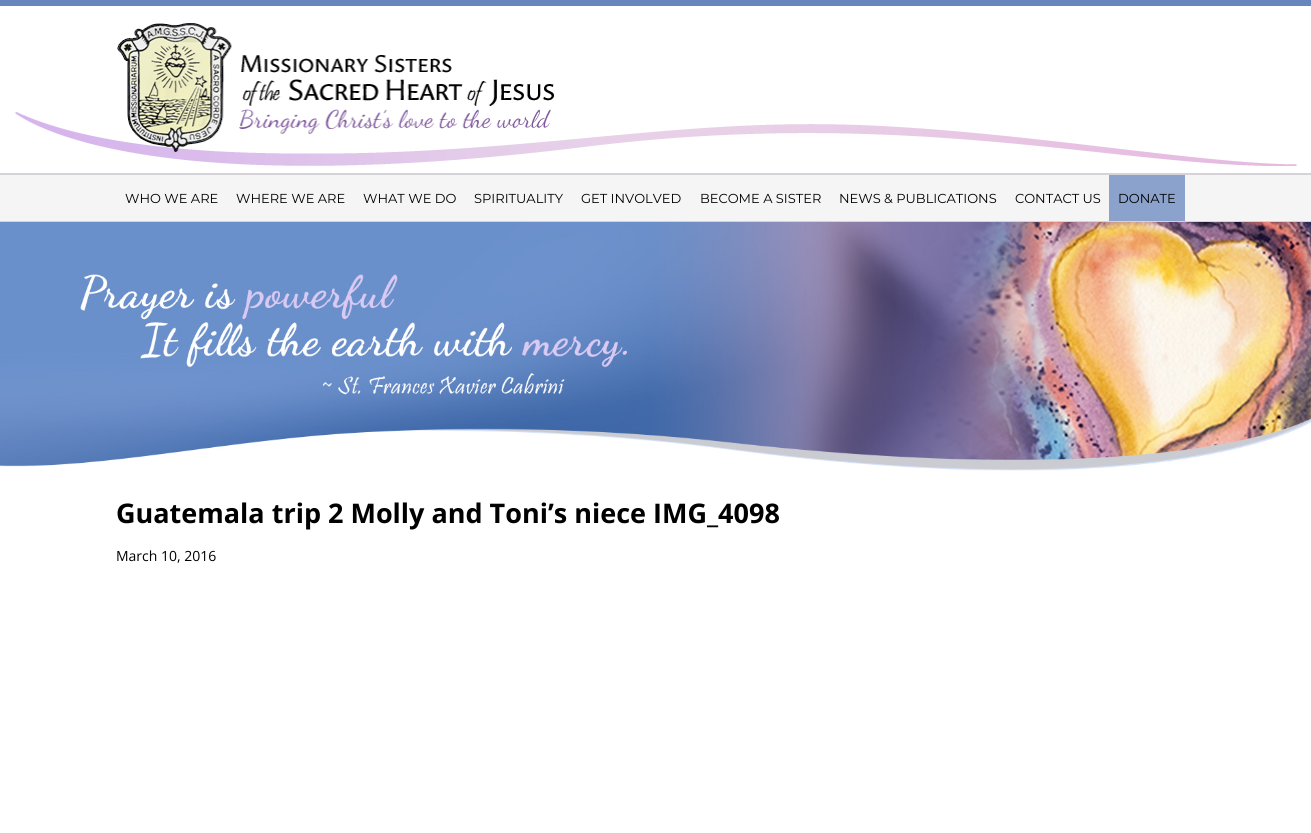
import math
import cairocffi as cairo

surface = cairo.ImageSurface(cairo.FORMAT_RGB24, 1311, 833)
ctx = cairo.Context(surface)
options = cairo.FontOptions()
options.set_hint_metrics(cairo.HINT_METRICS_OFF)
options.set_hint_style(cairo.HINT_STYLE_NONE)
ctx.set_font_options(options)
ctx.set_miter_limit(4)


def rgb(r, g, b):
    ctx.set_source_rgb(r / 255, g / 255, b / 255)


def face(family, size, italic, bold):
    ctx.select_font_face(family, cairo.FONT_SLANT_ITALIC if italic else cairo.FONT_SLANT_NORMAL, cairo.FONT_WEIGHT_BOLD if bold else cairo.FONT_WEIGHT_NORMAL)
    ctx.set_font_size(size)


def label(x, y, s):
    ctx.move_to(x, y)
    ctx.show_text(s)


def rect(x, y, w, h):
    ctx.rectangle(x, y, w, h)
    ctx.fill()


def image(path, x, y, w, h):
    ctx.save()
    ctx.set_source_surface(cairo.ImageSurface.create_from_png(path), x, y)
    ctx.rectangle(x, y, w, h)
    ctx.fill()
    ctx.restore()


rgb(255, 255, 255)
ctx.paint()
image('image0.png', 0, 0, 1311, 174)
image('image1.png', 117, 23, 437, 129)
rgb(245, 245, 245)
rect(0, 175, 1311, 46)
rgb(213, 211, 215)
rect(0, 174, 1311, 1)
rect(0, 221, 1311, 1)
face('Montserrat', 13, 0, 0)
rgb(0, 0, 0)
label(125, 203, 'WHO WE ARE')
label(236, 203, 'WHERE WE ARE')
label(363, 203, 'WHAT WE DO')
label(474, 203, 'SPIRITUALITY')
label(581, 203, 'GET INVOLVED')
label(700, 203, 'BECOME A SISTER')
label(839, 203, 'NEWS & PUBLICATIONS')
label(1015, 203, 'CONTACT US')
rgb(139, 162, 204)
rect(1109, 175, 76, 46)
rgb(0, 0, 0)
label(1118, 203, 'DONATE')
image('image2.png', 0, 222, 1311, 249)
face('Open Sans', 27, 0, 1)
label(116, 523, 'Guatemala trip 2 Molly and Toni’s niece IMG_4098')
face('Open Sans', 14, 0, 0)
label(116, 561, 'March 10, 2016')
surface.write_to_png('render.png')
